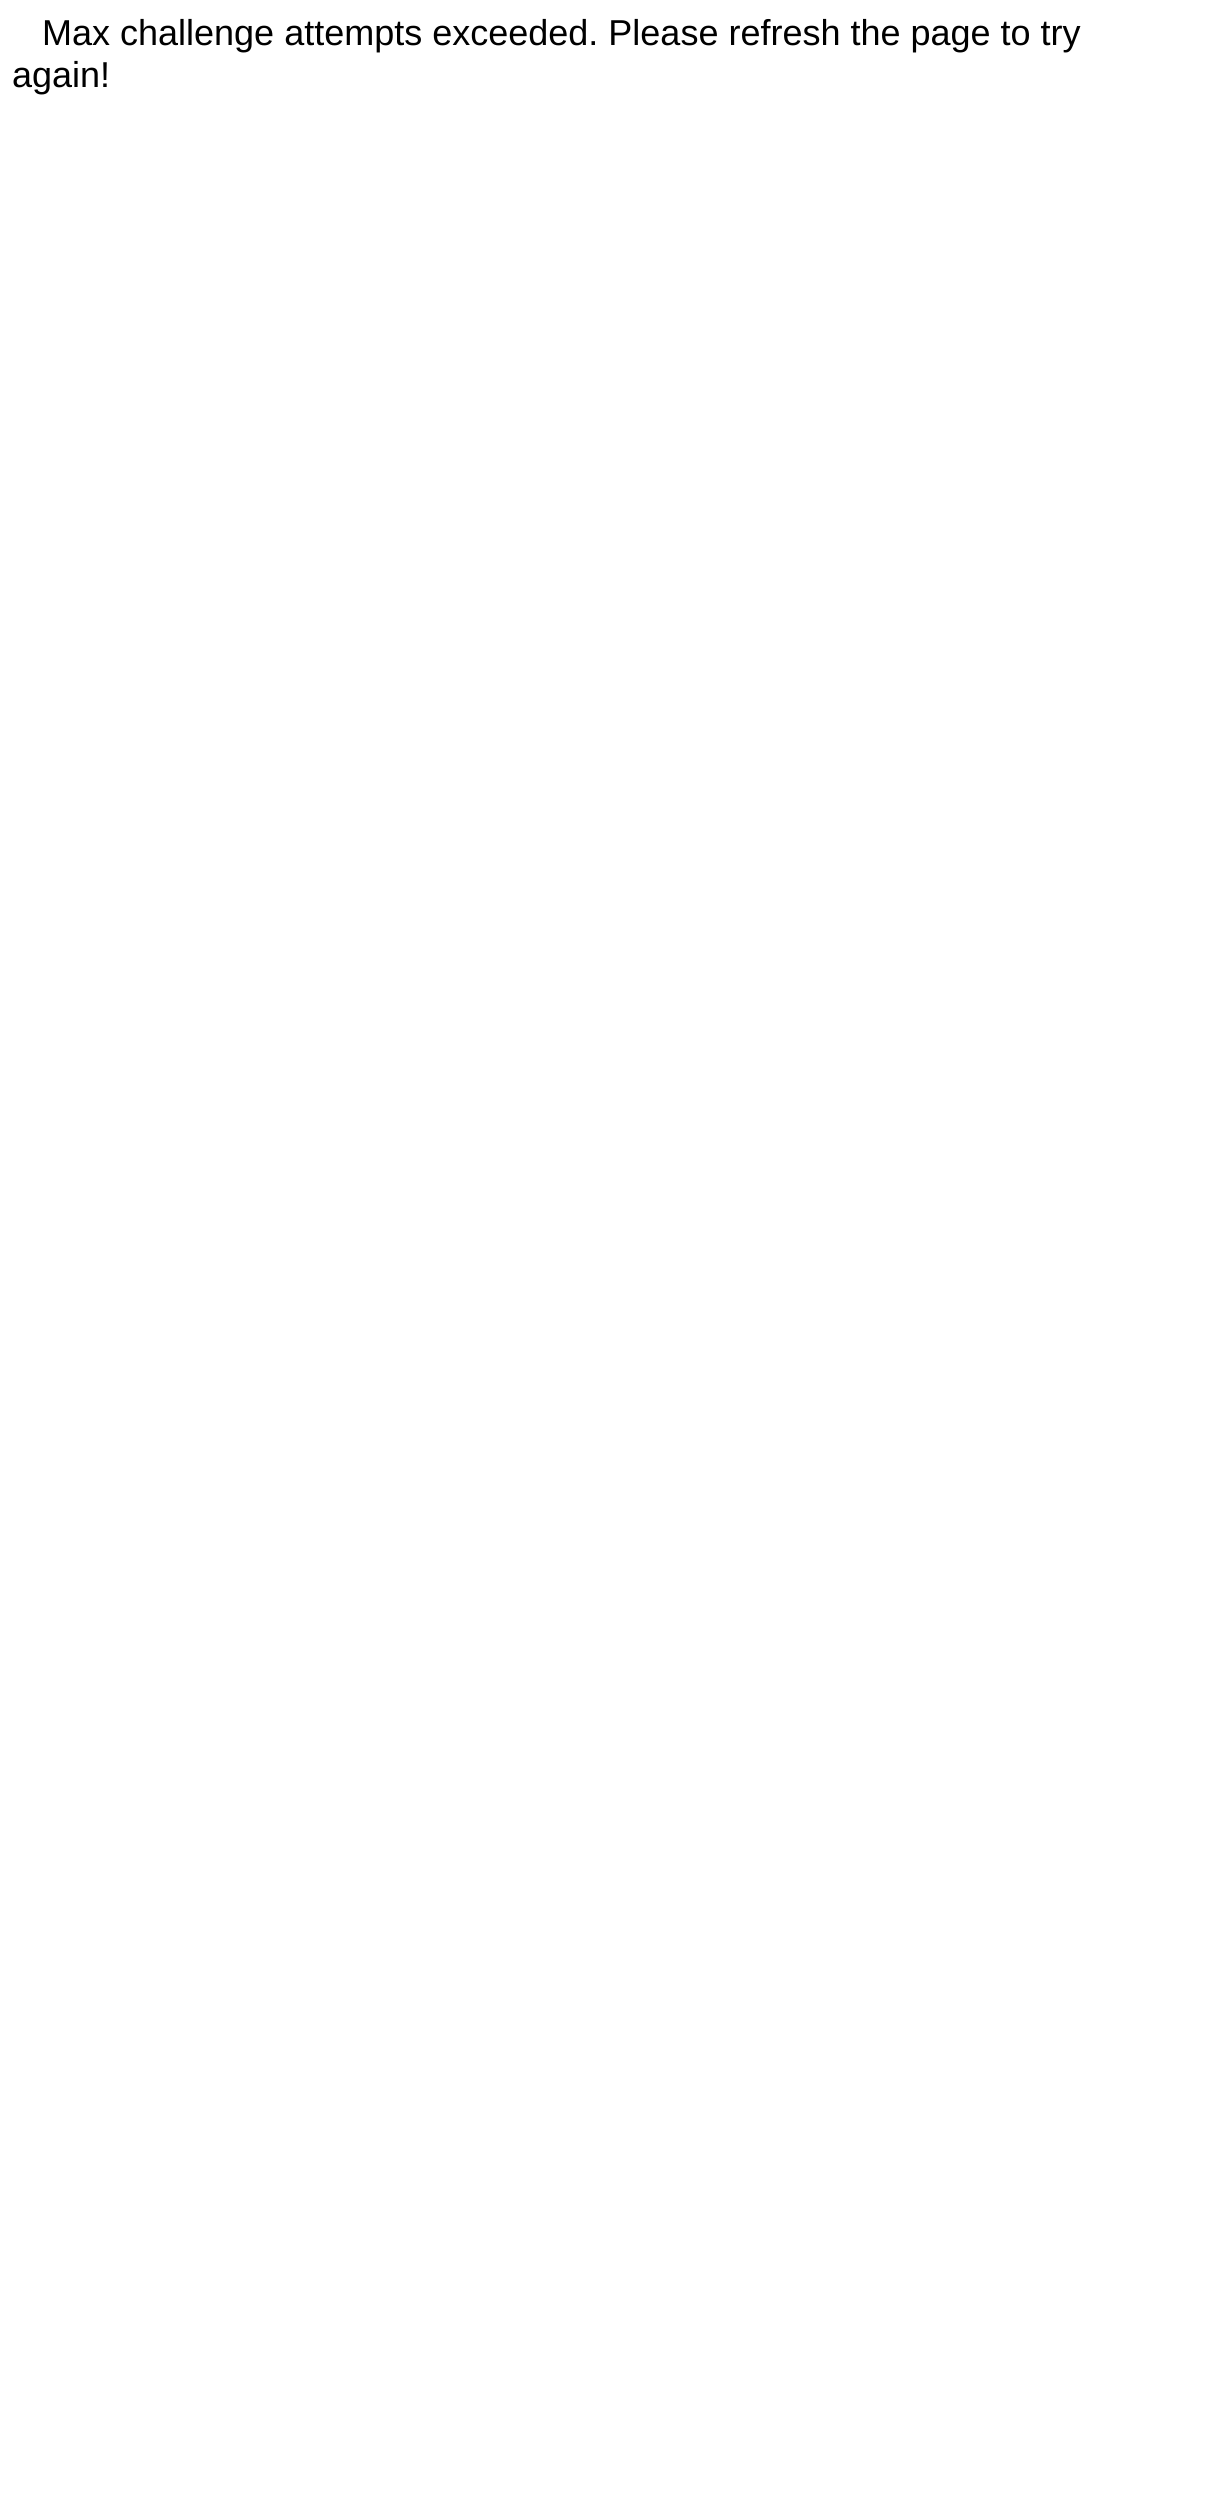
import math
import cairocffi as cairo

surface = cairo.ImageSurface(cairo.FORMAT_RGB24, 1230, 2495)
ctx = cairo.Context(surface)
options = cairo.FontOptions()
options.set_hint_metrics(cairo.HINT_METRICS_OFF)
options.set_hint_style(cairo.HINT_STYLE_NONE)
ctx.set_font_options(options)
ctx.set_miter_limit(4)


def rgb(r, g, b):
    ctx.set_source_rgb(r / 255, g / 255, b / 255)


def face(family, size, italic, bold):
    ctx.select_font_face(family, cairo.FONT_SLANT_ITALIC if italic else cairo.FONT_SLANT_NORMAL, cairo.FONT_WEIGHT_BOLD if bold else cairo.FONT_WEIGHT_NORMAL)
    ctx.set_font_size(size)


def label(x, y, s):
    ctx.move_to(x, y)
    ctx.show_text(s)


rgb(255, 255, 255)
ctx.paint()
face('Liberation Sans', 36, 0, 0)
rgb(0, 0, 0)
label(42, 45, 'Max challenge attempts exceeded. Please refresh the page to try')
label(12, 87, 'again!')
surface.write_to_png('render.png')
